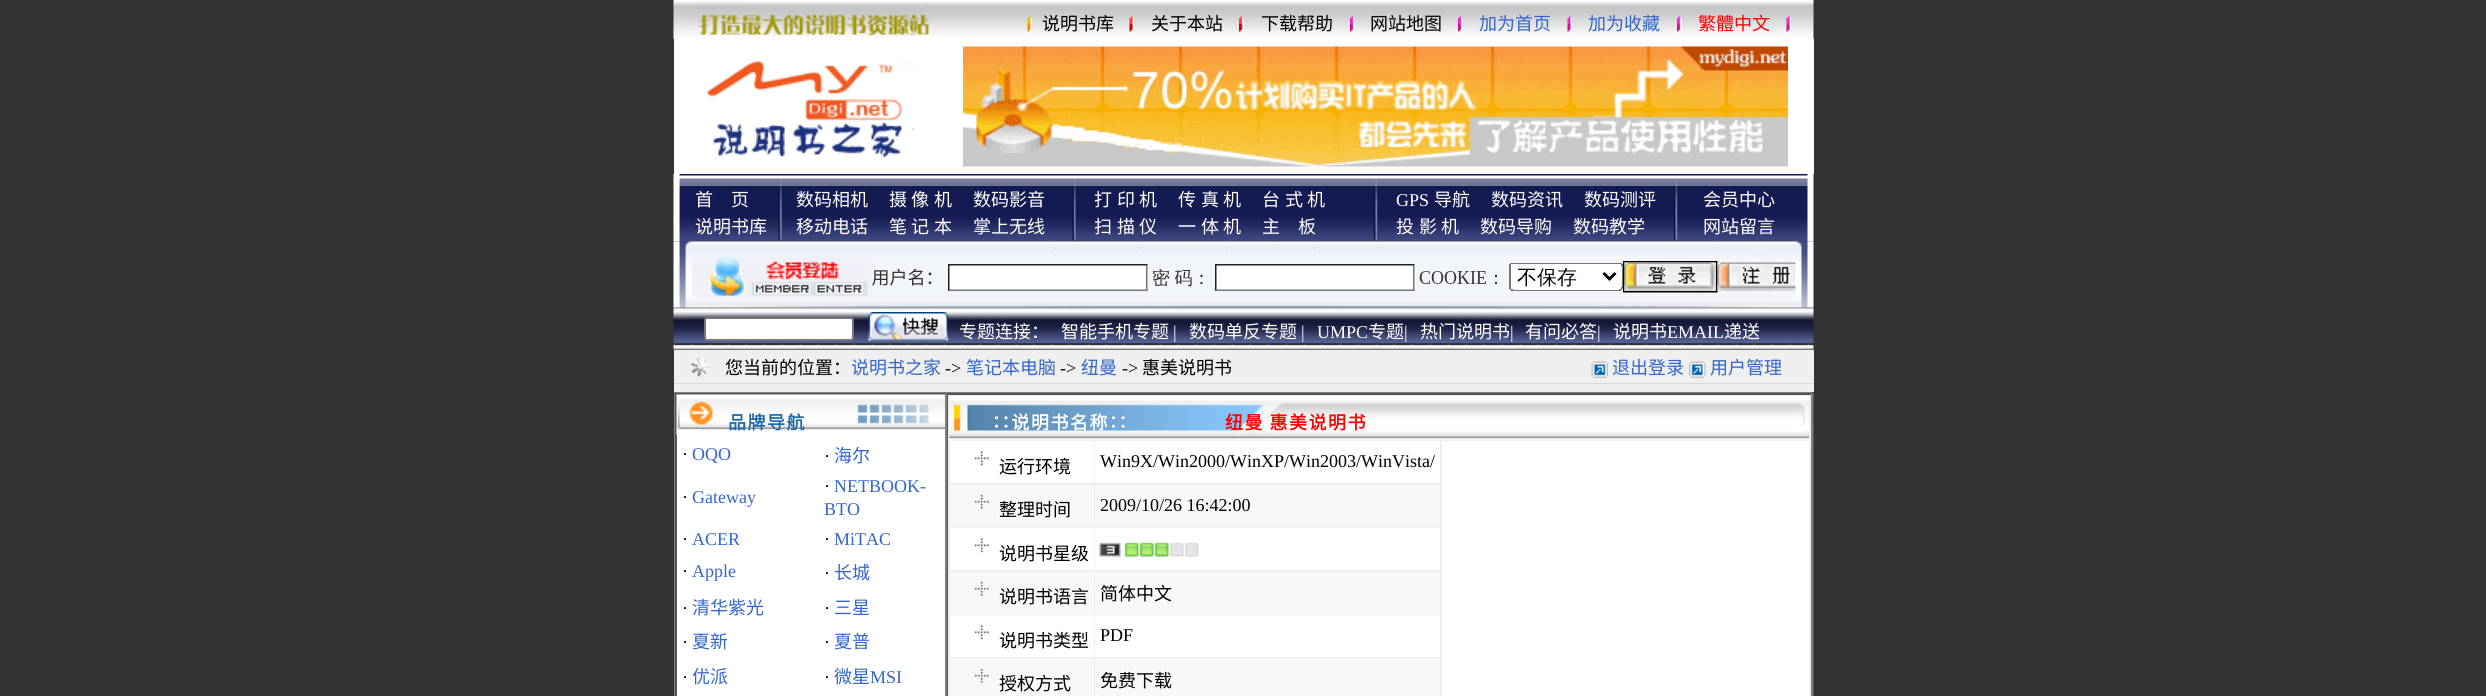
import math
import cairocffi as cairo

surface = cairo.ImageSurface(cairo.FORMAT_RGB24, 2486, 696)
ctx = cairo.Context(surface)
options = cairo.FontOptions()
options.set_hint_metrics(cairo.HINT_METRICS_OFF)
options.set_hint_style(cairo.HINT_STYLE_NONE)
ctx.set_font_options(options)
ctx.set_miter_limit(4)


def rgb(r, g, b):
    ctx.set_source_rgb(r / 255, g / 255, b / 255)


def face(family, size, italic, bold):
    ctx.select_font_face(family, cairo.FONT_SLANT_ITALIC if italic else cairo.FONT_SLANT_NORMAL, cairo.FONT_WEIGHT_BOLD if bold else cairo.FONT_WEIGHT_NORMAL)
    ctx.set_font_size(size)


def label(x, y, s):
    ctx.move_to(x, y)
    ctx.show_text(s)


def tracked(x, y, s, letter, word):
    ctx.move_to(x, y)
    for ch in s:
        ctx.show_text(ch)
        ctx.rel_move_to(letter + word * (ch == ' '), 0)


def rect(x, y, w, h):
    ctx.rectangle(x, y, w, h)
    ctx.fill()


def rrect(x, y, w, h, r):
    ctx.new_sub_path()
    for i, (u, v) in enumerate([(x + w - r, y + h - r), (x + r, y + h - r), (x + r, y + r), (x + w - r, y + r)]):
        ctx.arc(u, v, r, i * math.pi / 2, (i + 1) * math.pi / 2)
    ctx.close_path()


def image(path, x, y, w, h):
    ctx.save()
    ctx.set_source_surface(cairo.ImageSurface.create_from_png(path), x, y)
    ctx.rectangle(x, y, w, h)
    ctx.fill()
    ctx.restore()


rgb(51, 51, 51)
ctx.paint()
image('image0.png', 673, 0, 1141, 39)
image('image1.png', 692, 4, 237, 32)
face('Noto Sans CJK SC', 18, 0, 0)
rgb(0, 0, 0)
label(1042, 30, '说明书库')
label(1151, 30, '关于本站')
label(1261, 30, '下载帮助')
label(1370, 30, '网站地图')
rgb(51, 102, 204)
label(1479, 30, '加为首页')
label(1588, 30, '加为收藏')
rgb(255, 0, 0)
label(1698, 30, '繁體中文')
image('image2.png', 1027, 16, 5, 18)
image('image3.png', 1129, 16, 5, 17)
image('image4.png', 1239, 16, 5, 17)
image('image5.png', 1350, 16, 5, 18)
image('image6.png', 1458, 16, 5, 18)
image('image7.png', 1567, 16, 5, 17)
image('image8.png', 1677, 16, 5, 18)
image('image9.png', 1786, 16, 5, 17)
rgb(255, 255, 255)
rect(674, 39, 1140, 135)
image('image10.png', 706, 61, 208, 97)
image('image11.png', 963, 46, 825, 121)
image('image12.png', 673, 174, 1141, 12)
image('image13.png', 673, 186, 1141, 56)
label(695, 206, '首')
label(731, 206, '页')
label(695, 233, '说明书库')
label(796, 206, '数码相机')
label(889, 206, '摄')
label(911, 206, '像')
label(934, 206, '机')
label(973, 206, '数码影音')
label(796, 233, '移动电话')
label(889, 233, '笔')
label(911, 233, '记')
label(934, 233, '本')
label(973, 233, '掌上无线')
label(1094, 206, '打')
label(1117, 206, '印')
label(1139, 206, '机')
label(1178, 206, '传')
label(1201, 206, '真')
label(1223, 206, '机')
label(1262, 206, '台')
label(1285, 206, '式')
label(1307, 206, '机')
label(1094, 233, '扫')
label(1117, 233, '描')
label(1139, 233, '仪')
label(1178, 233, '一')
label(1201, 233, '体')
label(1223, 233, '机')
label(1262, 233, '主')
label(1298, 233, '板')
face('Liberation Serif', 18, 0, 0)
label(1396, 206, 'GPS')
face('Noto Sans CJK SC', 18, 0, 0)
label(1434, 206, '导航')
label(1491, 206, '数码资讯')
label(1584, 206, '数码测评')
label(1396, 233, '投')
label(1419, 233, '影')
label(1441, 233, '机')
label(1480, 233, '数码导购')
label(1573, 233, '数码教学')
label(1703, 206, '会员中心')
label(1703, 233, '网站留言')
image('image14.png', 673, 241, 1141, 67)
image('image15.png', 691, 256, 1105, 43)
image('image16.png', 673, 307, 1141, 43)
rrect(705, 318, 148, 22, 2)
ctx.fill_preserve()
rgb(118, 118, 118)
ctx.stroke()
image('image17.png', 868, 312, 80, 29)
rgb(255, 255, 255)
label(959, 338, '专题连接：')
label(1061, 338, '智能手机专题')
face('Liberation Serif', 18, 0, 0)
label(1173, 338, '|')
face('Noto Sans CJK SC', 18, 0, 0)
label(1189, 338, '数码单反专题')
face('Liberation Serif', 18, 0, 0)
label(1301, 338, '|')
label(1317, 338, 'UMPC')
face('Noto Sans CJK SC', 18, 0, 0)
label(1368, 338, '专题')
face('Liberation Serif', 18, 0, 0)
label(1404, 338, '|')
face('Noto Sans CJK SC', 18, 0, 0)
label(1420, 338, '热门说明书')
face('Liberation Serif', 18, 0, 0)
label(1510, 338, '|')
face('Noto Sans CJK SC', 18, 0, 0)
label(1525, 338, '有问必答')
face('Liberation Serif', 18, 0, 0)
label(1597, 338, '|')
face('Noto Sans CJK SC', 18, 0, 0)
label(1613, 338, '说明书')
face('Liberation Serif', 18, 0, 0)
label(1667, 338, 'EMAIL')
face('Noto Sans CJK SC', 18, 0, 0)
label(1724, 338, '递送')
rgb(239, 239, 239)
rect(674, 350, 1140, 33)
image('image18.png', 690, 358, 20, 19)
rgb(0, 0, 0)
label(725, 374, '您当前的位置：')
rgb(51, 102, 204)
label(851, 374, '说明书之家')
face('Liberation Serif', 18, 0, 0)
rgb(0, 0, 0)
label(945, 374, '->')
face('Noto Sans CJK SC', 18, 0, 0)
rgb(51, 102, 204)
label(966, 374, '笔记本电脑')
face('Liberation Serif', 18, 0, 0)
rgb(0, 0, 0)
label(1060, 374, '->')
face('Noto Sans CJK SC', 18, 0, 0)
rgb(51, 102, 204)
label(1081, 374, '纽曼')
face('Liberation Serif', 18, 0, 0)
rgb(0, 0, 0)
label(1122, 374, '->')
face('Noto Sans CJK SC', 18, 0, 0)
label(1142, 374, '惠美说明书')
image('image19.png', 1591, 361, 17, 17)
rgb(51, 102, 204)
label(1612, 374, '退出登录')
image('image20.png', 1689, 361, 17, 17)
label(1710, 374, '用户管理')
rgb(217, 217, 217)
rect(674, 383, 1140, 1)
rgb(239, 239, 239)
rect(674, 384, 1140, 8)
rgb(255, 255, 255)
rect(677, 435, 268, 261)
rgb(128, 128, 128)
rect(674, 392, 1140, 1)
rgb(85, 85, 85)
rect(1812, 392, 2, 304)
rgb(128, 128, 128)
rect(674, 392, 2, 304)
rgb(85, 85, 85)
rect(675, 393, 1137, 2)
rgb(128, 128, 128)
rect(945, 393, 2, 303)
rgb(85, 85, 85)
rect(675, 393, 2, 303)
image('image21.png', 676, 394, 269, 41)
face('Noto Sans CJK SC', 18, 0, 1)
rgb(30, 106, 168)
tracked(728, 429, '品牌导航', 1.5, 0)
face('Liberation Serif', 18, 0, 0)
rgb(0, 0, 0)
label(682, 460, '·')
rgb(51, 102, 204)
label(692, 460, 'OQO')
rgb(0, 0, 0)
label(824, 462, '·')
face('Noto Sans CJK SC', 18, 0, 0)
rgb(51, 102, 204)
label(834, 462, '海尔')
face('Liberation Serif', 18, 0, 0)
rgb(0, 0, 0)
label(682, 503, '·')
rgb(51, 102, 204)
label(692, 503, 'Gateway')
rgb(0, 0, 0)
label(824, 492, '·')
rgb(51, 102, 204)
label(834, 492, 'NETBOOK-')
label(824, 515, 'BTO')
rgb(0, 0, 0)
label(682, 545, '·')
rgb(51, 102, 204)
label(692, 545, 'ACER')
rgb(0, 0, 0)
label(824, 545, '·')
rgb(51, 102, 204)
label(834, 545, 'MiTAC')
rgb(0, 0, 0)
label(682, 577, '·')
rgb(51, 102, 204)
label(692, 577, 'Apple')
rgb(0, 0, 0)
label(824, 579, '·')
face('Noto Sans CJK SC', 18, 0, 0)
rgb(51, 102, 204)
label(834, 579, '长城')
face('Liberation Serif', 18, 0, 0)
rgb(0, 0, 0)
label(682, 614, '·')
face('Noto Sans CJK SC', 18, 0, 0)
rgb(51, 102, 204)
label(692, 614, '清华紫光')
face('Liberation Serif', 18, 0, 0)
rgb(0, 0, 0)
label(824, 614, '·')
face('Noto Sans CJK SC', 18, 0, 0)
rgb(51, 102, 204)
label(834, 614, '三星')
face('Liberation Serif', 18, 0, 0)
rgb(0, 0, 0)
label(682, 648, '·')
face('Noto Sans CJK SC', 18, 0, 0)
rgb(51, 102, 204)
label(692, 648, '夏新')
face('Liberation Serif', 18, 0, 0)
rgb(0, 0, 0)
label(824, 648, '·')
face('Noto Sans CJK SC', 18, 0, 0)
rgb(51, 102, 204)
label(834, 648, '夏普')
face('Liberation Serif', 18, 0, 0)
rgb(0, 0, 0)
label(682, 683, '·')
face('Noto Sans CJK SC', 18, 0, 0)
rgb(51, 102, 204)
label(692, 683, '优派')
face('Liberation Serif', 18, 0, 0)
rgb(0, 0, 0)
label(824, 683, '·')
face('Noto Sans CJK SC', 18, 0, 0)
rgb(51, 102, 204)
label(834, 683, '微星')
face('Liberation Serif', 18, 0, 0)
label(870, 683, 'MSI')
rgb(128, 128, 128)
rect(1811, 393, 2, 303)
rgb(85, 85, 85)
rect(947, 393, 2, 303)
rgb(239, 239, 239)
rect(948, 395, 863, 301)
image('image22.png', 949, 396, 860, 44)
face('Noto Sans CJK SC', 18, 0, 1)
rgb(255, 255, 255)
tracked(992, 429, '∷说明书名称∷', 1.5, 0)
rgb(255, 0, 0)
tracked(1225, 429, '纽曼 惠美说明书', 1.5, 0)
rgb(255, 255, 255)
rect(950, 441, 144, 42)
image('image23.png', 974, 451, 15, 15)
face('Noto Sans CJK SC', 18, 0, 0)
rgb(0, 0, 0)
label(999, 473, '运行环境')
rgb(255, 255, 255)
rect(1095, 441, 345, 42)
face('Liberation Serif', 18, 0, 0)
rgb(0, 0, 0)
label(1100, 467, 'Win9X/Win2000/WinXP/Win2003/WinVista/')
rgb(255, 255, 255)
rect(1442, 441, 367, 255)
rgb(248, 248, 248)
rect(950, 485, 144, 42)
image('image24.png', 974, 494, 15, 15)
face('Noto Sans CJK SC', 18, 0, 0)
rgb(0, 0, 0)
label(999, 516, '整理时间')
rgb(248, 248, 248)
rect(1095, 485, 345, 42)
face('Liberation Serif', 18, 0, 0)
rgb(0, 0, 0)
label(1100, 511, '2009/10/26 16:42:00')
rgb(255, 255, 255)
rect(950, 528, 144, 42)
image('image23.png', 974, 538, 15, 15)
face('Noto Sans CJK SC', 18, 0, 0)
rgb(0, 0, 0)
label(999, 560, '说明书星级')
rgb(255, 255, 255)
rect(1095, 528, 345, 42)
image('image25.png', 1099, 542, 100, 15)
rgb(248, 248, 248)
rect(950, 572, 144, 42)
image('image24.png', 974, 581, 15, 15)
rgb(0, 0, 0)
label(999, 603, '说明书语言')
rgb(248, 248, 248)
rect(1095, 572, 345, 42)
rgb(0, 0, 0)
label(1100, 600, '简体中文')
rgb(255, 255, 255)
rect(950, 615, 144, 42)
image('image23.png', 974, 625, 15, 15)
rgb(0, 0, 0)
label(999, 647, '说明书类型')
rgb(255, 255, 255)
rect(1095, 615, 345, 42)
face('Liberation Serif', 18, 0, 0)
rgb(0, 0, 0)
label(1100, 641, 'PDF')
rgb(248, 248, 248)
rect(950, 659, 144, 37)
image('image24.png', 974, 668, 15, 15)
face('Noto Sans CJK SC', 18, 0, 0)
rgb(0, 0, 0)
label(999, 690, '授权方式')
rgb(248, 248, 248)
rect(1095, 659, 345, 37)
rgb(0, 0, 0)
label(1100, 687, '免费下载')
surface.write_to_png('render.png')
